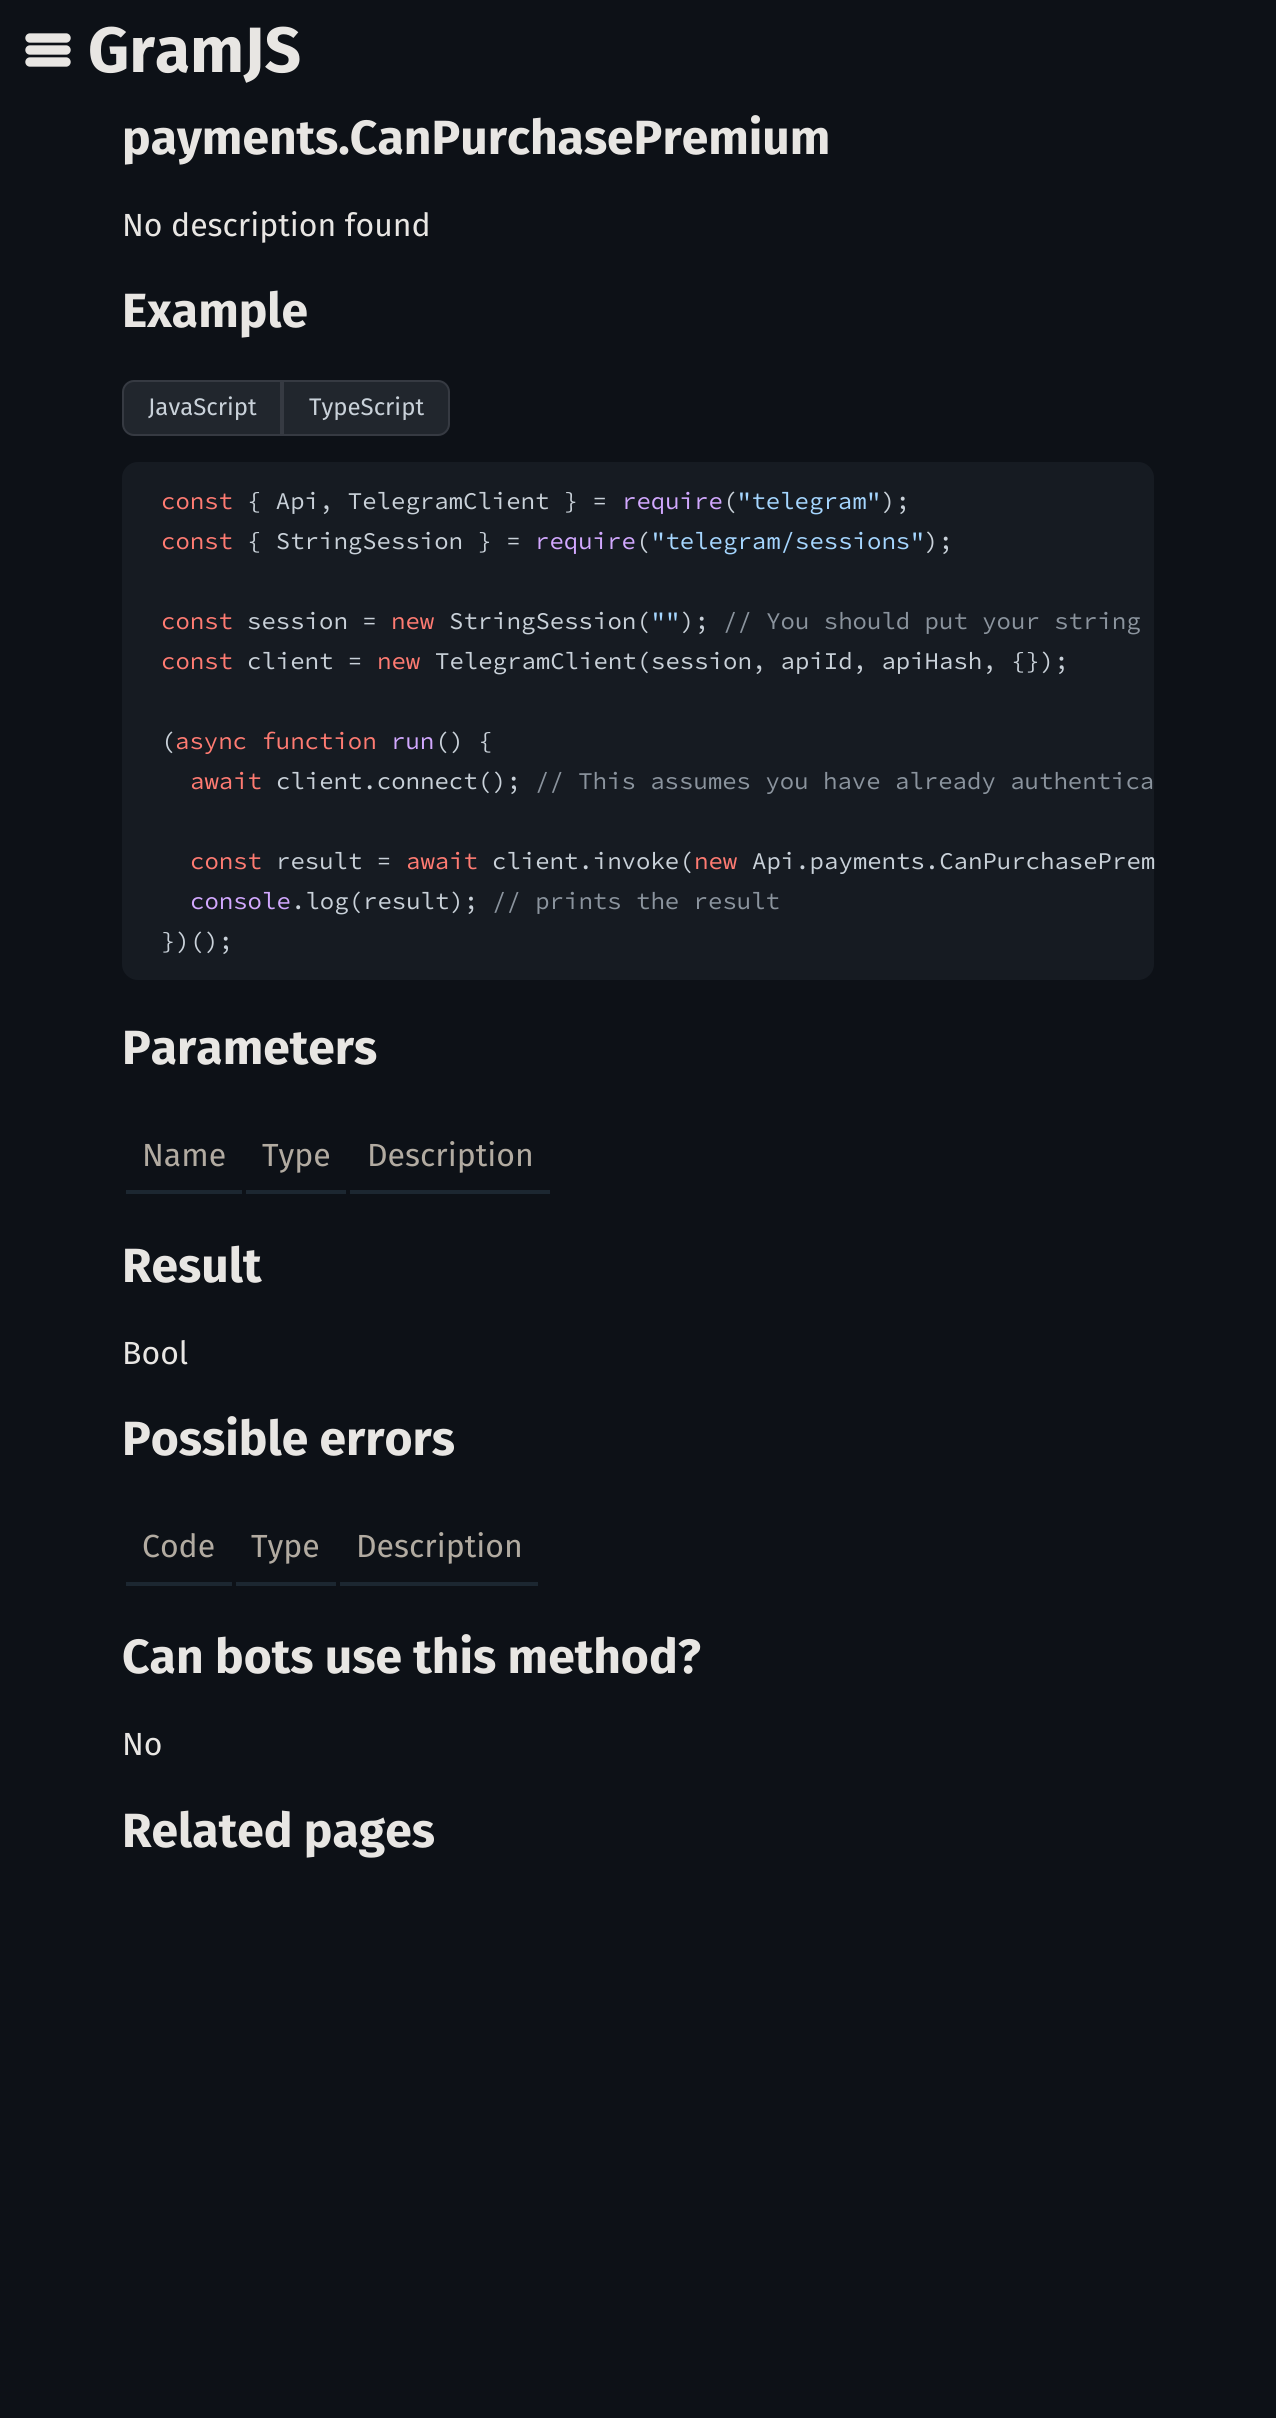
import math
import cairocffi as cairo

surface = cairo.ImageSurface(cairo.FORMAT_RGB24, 1276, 2418)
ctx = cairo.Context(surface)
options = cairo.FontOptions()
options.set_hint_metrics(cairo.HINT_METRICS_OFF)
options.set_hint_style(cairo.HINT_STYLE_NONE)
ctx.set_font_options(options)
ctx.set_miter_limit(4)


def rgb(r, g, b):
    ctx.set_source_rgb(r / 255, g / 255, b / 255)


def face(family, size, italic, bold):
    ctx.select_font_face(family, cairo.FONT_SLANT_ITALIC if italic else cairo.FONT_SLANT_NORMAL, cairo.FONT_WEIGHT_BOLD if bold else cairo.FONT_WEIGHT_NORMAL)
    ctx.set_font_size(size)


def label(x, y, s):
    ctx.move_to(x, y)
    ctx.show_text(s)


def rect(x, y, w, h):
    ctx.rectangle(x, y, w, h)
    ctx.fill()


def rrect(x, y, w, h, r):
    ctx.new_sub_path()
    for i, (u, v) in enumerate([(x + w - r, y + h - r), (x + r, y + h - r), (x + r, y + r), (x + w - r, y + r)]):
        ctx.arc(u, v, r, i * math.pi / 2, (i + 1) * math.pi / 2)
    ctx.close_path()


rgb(13, 17, 23)
ctx.paint()
ctx.new_path()
ctx.move_to(30, 38)
ctx.line_to(66, 38)
ctx.move_to(30, 50)
ctx.line_to(66, 50)
ctx.move_to(30, 62)
ctx.line_to(66, 62)
rgb(232, 230, 227)
ctx.set_line_width(9.4)
ctx.set_line_cap(cairo.LINE_CAP_ROUND)
ctx.set_line_join(cairo.LINE_JOIN_ROUND)
ctx.stroke()
face('Fira Sans', 64, 0, 1)
label(88, 72, 'GramJS')
face('Fira Sans', 48, 0, 1)
label(122, 154, 'payments.CanPurchasePremium')
face('Fira Sans', 32, 0, 0)
label(122, 236, 'No description found')
face('Fira Sans', 48, 0, 1)
label(122, 327, 'Example')
rgb(33, 38, 45)
ctx.new_path()
ctx.move_to(134, 380)
ctx.line_to(282, 380)
ctx.line_to(282, 436)
ctx.line_to(134, 436)
ctx.curve_to(127.5, 436, 122, 430.5, 122, 424)
ctx.line_to(122, 392)
ctx.curve_to(122, 385.5, 127.5, 380, 134, 380)
ctx.close_path()
ctx.fill()
ctx.new_path()
ctx.move_to(134, 381)
ctx.line_to(281, 381)
ctx.line_to(281, 435)
ctx.line_to(134, 435)
ctx.curve_to(128, 435, 123, 430, 123, 424)
ctx.line_to(123, 392)
ctx.curve_to(123, 386, 128, 381, 134, 381)
ctx.close_path()
ctx.set_source_rgba(0.941, 0.965, 0.988, 0.1)
ctx.set_line_width(2)
ctx.set_line_cap(cairo.LINE_CAP_BUTT)
ctx.set_line_join(cairo.LINE_JOIN_MITER)
ctx.stroke()
face('Fira Sans', 24, 0, 0)
rgb(201, 209, 217)
label(148, 415, 'JavaScript')
rgb(33, 38, 45)
ctx.new_path()
ctx.move_to(282, 380)
ctx.line_to(438, 380)
ctx.curve_to(444.5, 380, 450, 385.5, 450, 392)
ctx.line_to(450, 424)
ctx.curve_to(450, 430.5, 444.5, 436, 438, 436)
ctx.line_to(282, 436)
ctx.close_path()
ctx.fill()
ctx.new_path()
ctx.move_to(283, 381)
ctx.line_to(438, 381)
ctx.curve_to(444, 381, 449, 386, 449, 392)
ctx.line_to(449, 424)
ctx.curve_to(449, 430, 444, 435, 438, 435)
ctx.line_to(283, 435)
ctx.close_path()
ctx.set_source_rgba(0.941, 0.965, 0.988, 0.1)
ctx.stroke()
rgb(201, 209, 217)
label(309, 415, 'TypeScript')
rgb(22, 27, 34)
rrect(122, 462, 1032, 518, 16)
ctx.fill()
face('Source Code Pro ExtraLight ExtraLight', 24, 0, 0)
rgb(255, 123, 114)
label(161, 509, 'const')
rgb(201, 209, 217)
label(247, 509, '{ Api, TelegramClient } =')
rgb(210, 168, 255)
label(622, 509, 'require')
rgb(201, 209, 217)
label(723, 509, '(')
rgb(165, 214, 255)
label(737, 509, '"telegram"')
rgb(201, 209, 217)
label(881, 509, ');')
rgb(255, 123, 114)
label(161, 549, 'const')
rgb(201, 209, 217)
label(247, 549, '{ StringSession } =')
rgb(210, 168, 255)
label(535, 549, 'require')
rgb(201, 209, 217)
label(636, 549, '(')
rgb(165, 214, 255)
label(651, 549, '"telegram/sessions"')
rgb(201, 209, 217)
label(924, 549, ');')
rgb(255, 123, 114)
label(161, 629, 'const')
rgb(201, 209, 217)
label(247, 629, 'session =')
rgb(255, 123, 114)
label(391, 629, 'new')
rgb(201, 209, 217)
label(449, 629, 'StringSession(')
rgb(165, 214, 255)
label(651, 629, '""')
rgb(201, 209, 217)
label(680, 629, ');')
rgb(139, 148, 158)
label(723, 629, '// You should put your string')
rgb(255, 123, 114)
label(161, 669, 'const')
rgb(201, 209, 217)
label(247, 669, 'client =')
rgb(255, 123, 114)
label(377, 669, 'new')
rgb(201, 209, 217)
label(435, 669, 'TelegramClient(session, apiId, apiHash, {});')
label(161, 749, '(')
rgb(255, 123, 114)
label(175, 749, 'async function')
rgb(210, 168, 255)
label(391, 749, 'run')
rgb(201, 209, 217)
label(435, 749, '() {')
rgb(255, 123, 114)
label(190, 789, 'await')
rgb(201, 209, 217)
label(276, 789, 'client.connect();')
rgb(139, 148, 158)
label(535, 789, '// This assumes you have already authentica')
rgb(255, 123, 114)
label(190, 869, 'const')
rgb(201, 209, 217)
label(276, 869, 'result =')
rgb(255, 123, 114)
label(406, 869, 'await')
rgb(201, 209, 217)
label(492, 869, 'client.invoke(')
rgb(255, 123, 114)
label(694, 869, 'new')
rgb(201, 209, 217)
label(752, 869, 'Api.payments.CanPurchasePrem')
rgb(210, 168, 255)
label(190, 909, 'console')
rgb(201, 209, 217)
label(291, 909, '.log(result);')
rgb(139, 148, 158)
label(492, 909, '// prints the result')
rgb(201, 209, 217)
label(161, 949, '})();')
face('Fira Sans', 48, 0, 1)
rgb(232, 230, 227)
label(122, 1064, 'Parameters')
rgb(28, 39, 49)
rect(126, 1190, 116, 4)
face('Fira Sans', 32, 0, 0)
rgb(178, 171, 161)
label(142, 1166, 'Name')
rgb(28, 39, 49)
rect(246, 1190, 100, 4)
rgb(178, 171, 161)
label(262, 1166, 'Type')
rgb(28, 39, 49)
rect(350, 1190, 200, 4)
rgb(178, 171, 161)
label(367, 1166, 'Description')
face('Fira Sans', 48, 0, 1)
rgb(232, 230, 227)
label(122, 1282, 'Result')
face('Fira Sans', 32, 0, 0)
label(122, 1364, 'Bool')
face('Fira Sans', 48, 0, 1)
label(122, 1455, 'Possible errors')
rgb(28, 39, 49)
rect(126, 1582, 106, 4)
face('Fira Sans', 32, 0, 0)
rgb(178, 171, 161)
label(142, 1557, 'Code')
rgb(28, 39, 49)
rect(236, 1582, 100, 4)
rgb(178, 171, 161)
label(251, 1557, 'Type')
rgb(28, 39, 49)
rect(340, 1582, 198, 4)
rgb(178, 171, 161)
label(356, 1557, 'Description')
face('Fira Sans', 48, 0, 1)
rgb(232, 230, 227)
label(122, 1673, 'Can bots use this method?')
face('Fira Sans', 32, 0, 0)
label(122, 1755, 'No')
face('Fira Sans', 48, 0, 1)
label(122, 1847, 'Related pages')
surface.write_to_png('render.png')
